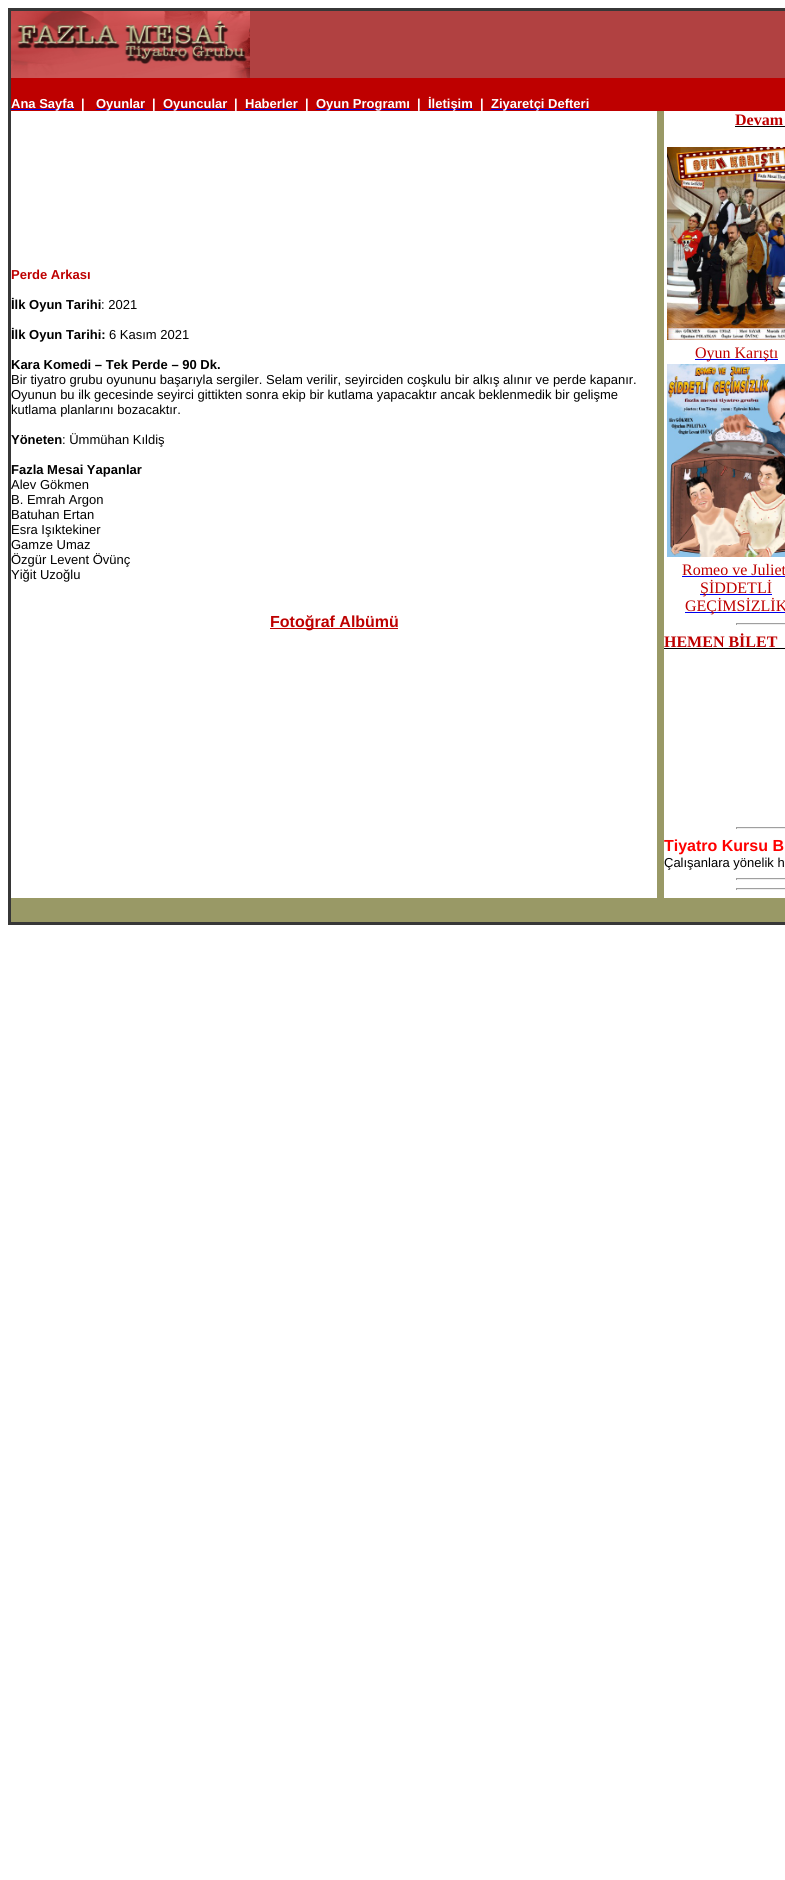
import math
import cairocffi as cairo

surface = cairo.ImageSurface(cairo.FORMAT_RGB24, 785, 1880)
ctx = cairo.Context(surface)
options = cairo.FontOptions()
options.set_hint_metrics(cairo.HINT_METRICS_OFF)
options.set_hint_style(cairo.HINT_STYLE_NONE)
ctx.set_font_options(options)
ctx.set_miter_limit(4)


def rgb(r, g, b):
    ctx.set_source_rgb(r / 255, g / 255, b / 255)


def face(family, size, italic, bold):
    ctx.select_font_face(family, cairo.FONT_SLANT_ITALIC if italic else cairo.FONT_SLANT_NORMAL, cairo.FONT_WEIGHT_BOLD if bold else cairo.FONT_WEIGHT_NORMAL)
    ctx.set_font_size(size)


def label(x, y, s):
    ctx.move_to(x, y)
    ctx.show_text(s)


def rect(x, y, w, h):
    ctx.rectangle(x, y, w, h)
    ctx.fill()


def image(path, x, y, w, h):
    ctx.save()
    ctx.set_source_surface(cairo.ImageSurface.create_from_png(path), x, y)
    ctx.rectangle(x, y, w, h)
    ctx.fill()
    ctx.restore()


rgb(255, 255, 255)
ctx.paint()
ctx.rectangle(9, 9, 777, 915)
rgb(55, 55, 55)
ctx.stroke()
ctx.rectangle(10.5, 10.5, 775, 912)
ctx.set_line_width(1)
ctx.stroke()
rgb(177, 65, 65)
rect(250, 11, 535, 67)
image('image0.png', 11, 11, 239, 67)
rgb(190, 0, 0)
rect(11, 78, 774, 33)
rgb(0, 0, 238)
rect(11, 109, 63, 1)
face('Liberation Sans', 13, 0, 1)
rgb(255, 255, 255)
label(11, 108, 'Ana Sayfa')
label(81, 108, '|')
rgb(0, 0, 238)
rect(96, 109, 49, 1)
rgb(255, 255, 255)
label(96, 108, 'Oyunlar')
label(152, 108, '|')
rgb(0, 0, 238)
rect(163, 109, 64, 1)
rgb(255, 255, 255)
label(163, 108, 'Oyuncular')
label(234, 108, '|')
label(245, 108, 'Haberler')
rgb(0, 0, 238)
rect(245, 109, 53, 1)
rgb(255, 255, 255)
label(305, 108, '|')
rgb(0, 0, 238)
rect(316, 109, 94, 1)
rgb(255, 255, 255)
label(316, 108, 'Oyun Programı')
label(417, 108, '|')
rgb(0, 0, 238)
rect(428, 109, 45, 1)
rgb(255, 255, 255)
label(428, 108, 'İletişim')
label(480, 108, '|')
rgb(0, 0, 238)
rect(491, 109, 98, 1)
rgb(255, 255, 255)
label(491, 108, 'Ziyaretçi Defteri')
rgb(190, 0, 0)
label(11, 279, 'Perde Arkası')
rgb(0, 0, 0)
label(11, 309, 'İlk Oyun Tarihi')
face('Liberation Sans', 13, 0, 0)
label(101, 309, ': 2021')
face('Liberation Sans', 13, 0, 1)
label(11, 339, 'İlk Oyun Tarihi:')
face('Liberation Sans', 13, 0, 0)
label(109, 339, '6 Kasım 2021')
face('Liberation Sans', 13, 0, 1)
label(11, 369, 'Kara Komedi – Tek Perde – 90 Dk.')
face('Liberation Sans', 13, 0, 0)
label(11, 384, 'Bir tiyatro grubu oyununu başarıyla sergiler. Selam verilir, seyirciden coşkulu bir alkış alınır ve perde kapanır.')
label(11, 399, 'Oyunun bu ilk gecesinde seyirci gittikten sonra ekip bir kutlama yapacaktır ancak beklenmedik bir gelişme')
label(11, 414, 'kutlama planlarını bozacaktır.')
face('Liberation Sans', 13, 0, 1)
label(11, 444, 'Yöneten')
face('Liberation Sans', 13, 0, 0)
label(62, 444, ': Ümmühan Kıldiş')
face('Liberation Sans', 13, 0, 1)
label(11, 474, 'Fazla Mesai Yapanlar')
face('Liberation Sans', 13, 0, 0)
label(11, 489, 'Alev Gökmen')
label(11, 504, 'B. Emrah Argon')
label(11, 519, 'Batuhan Ertan')
label(11, 534, 'Esra Işıktekiner')
label(11, 549, 'Gamze Umaz')
label(11, 564, 'Özgür Levent Övünç')
label(11, 579, 'Yiğit Uzoğlu')
rgb(190, 0, 0)
rect(270, 628, 128, 1)
face('Liberation Sans', 16, 0, 1)
label(270, 627, 'Fotoğraf Albümü')
rgb(153, 153, 102)
rect(657, 111, 7, 787)
face('Liberation Serif', 16, 0, 1)
rgb(190, 0, 0)
label(735, 125, 'Devam')
rgb(0, 0, 0)
rect(735, 126, 50, 1)
image('image1.png', 667, 147, 118, 193)
rgb(0, 0, 238)
rect(695, 359, 83, 1)
face('Liberation Serif', 16, 0, 0)
rgb(190, 0, 0)
label(695, 358, 'Oyun Karıştı')
image('image2.png', 667, 364, 118, 193)
label(682, 575, 'Romeo ve Juliet')
rgb(0, 0, 238)
rect(682, 576, 103, 1)
rect(700, 594, 72, 1)
rgb(190, 0, 0)
label(700, 593, 'ŞİDDETLİ')
rgb(0, 0, 238)
rect(685, 612, 100, 1)
rgb(190, 0, 0)
label(685, 611, 'GEÇİMSİZLİK')
rgb(159, 159, 159)
rect(736, 623, 49, 1)
rgb(238, 238, 238)
rect(736, 624, 49, 1)
rgb(159, 159, 159)
rect(736, 623, 1, 2)
face('Liberation Serif', 16, 0, 1)
rgb(190, 0, 0)
label(664, 647, 'HEMEN BİLET')
rgb(0, 0, 0)
rect(664, 648, 121, 1)
rgb(159, 159, 159)
rect(736, 827, 49, 1)
rgb(238, 238, 238)
rect(736, 828, 49, 1)
rgb(159, 159, 159)
rect(736, 827, 1, 2)
face('Liberation Sans', 16, 0, 1)
rgb(255, 0, 0)
label(664, 851, 'Tiyatro Kursu B')
face('Liberation Sans', 13, 0, 0)
rgb(0, 0, 0)
label(664, 867, 'Çalışanlara yönelik h')
rgb(159, 159, 159)
rect(736, 878, 49, 1)
rgb(238, 238, 238)
rect(736, 879, 49, 1)
rgb(159, 159, 159)
rect(736, 878, 1, 2)
rect(736, 888, 49, 1)
rgb(238, 238, 238)
rect(736, 889, 49, 1)
rgb(159, 159, 159)
rect(736, 888, 1, 2)
rgb(153, 153, 102)
rect(11, 898, 774, 24)
surface.write_to_png('render.png')
